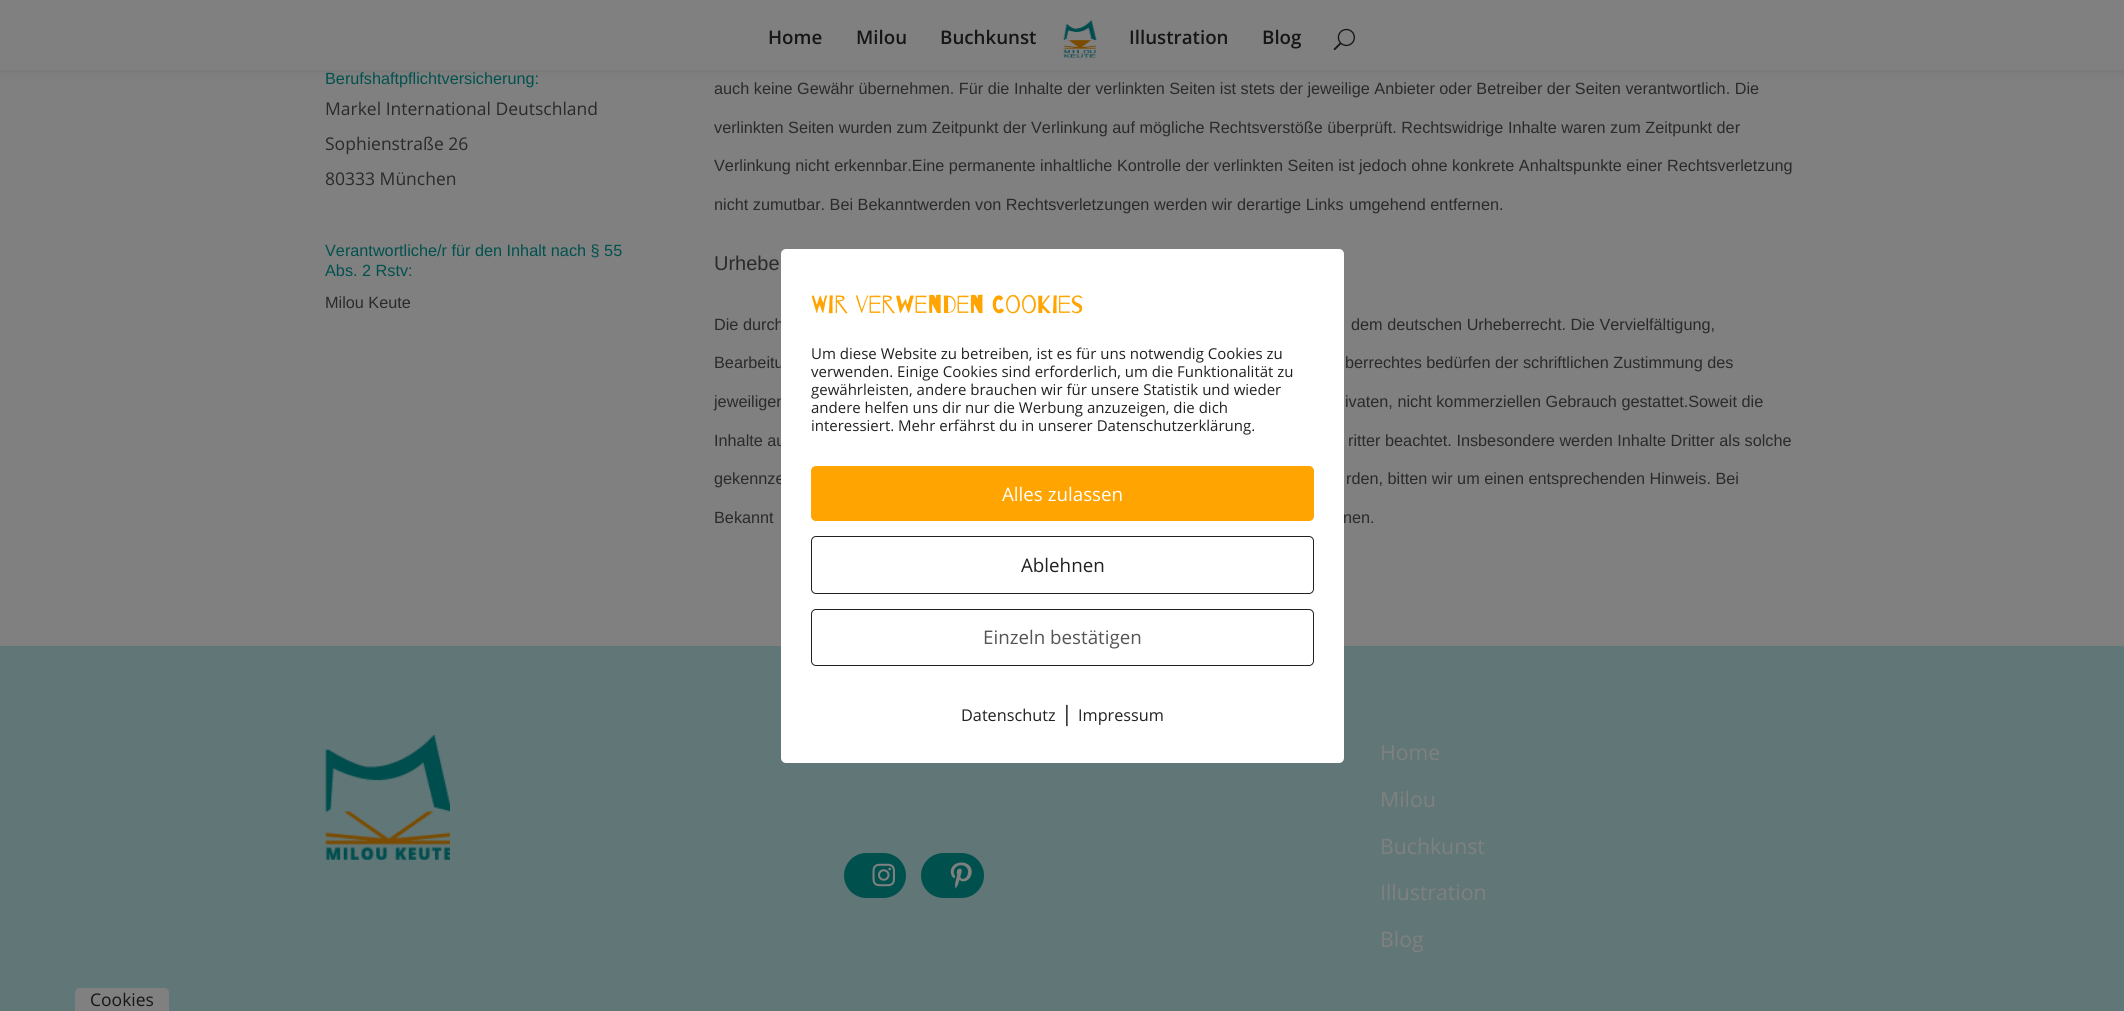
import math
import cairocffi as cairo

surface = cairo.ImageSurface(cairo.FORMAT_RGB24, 2124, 1011)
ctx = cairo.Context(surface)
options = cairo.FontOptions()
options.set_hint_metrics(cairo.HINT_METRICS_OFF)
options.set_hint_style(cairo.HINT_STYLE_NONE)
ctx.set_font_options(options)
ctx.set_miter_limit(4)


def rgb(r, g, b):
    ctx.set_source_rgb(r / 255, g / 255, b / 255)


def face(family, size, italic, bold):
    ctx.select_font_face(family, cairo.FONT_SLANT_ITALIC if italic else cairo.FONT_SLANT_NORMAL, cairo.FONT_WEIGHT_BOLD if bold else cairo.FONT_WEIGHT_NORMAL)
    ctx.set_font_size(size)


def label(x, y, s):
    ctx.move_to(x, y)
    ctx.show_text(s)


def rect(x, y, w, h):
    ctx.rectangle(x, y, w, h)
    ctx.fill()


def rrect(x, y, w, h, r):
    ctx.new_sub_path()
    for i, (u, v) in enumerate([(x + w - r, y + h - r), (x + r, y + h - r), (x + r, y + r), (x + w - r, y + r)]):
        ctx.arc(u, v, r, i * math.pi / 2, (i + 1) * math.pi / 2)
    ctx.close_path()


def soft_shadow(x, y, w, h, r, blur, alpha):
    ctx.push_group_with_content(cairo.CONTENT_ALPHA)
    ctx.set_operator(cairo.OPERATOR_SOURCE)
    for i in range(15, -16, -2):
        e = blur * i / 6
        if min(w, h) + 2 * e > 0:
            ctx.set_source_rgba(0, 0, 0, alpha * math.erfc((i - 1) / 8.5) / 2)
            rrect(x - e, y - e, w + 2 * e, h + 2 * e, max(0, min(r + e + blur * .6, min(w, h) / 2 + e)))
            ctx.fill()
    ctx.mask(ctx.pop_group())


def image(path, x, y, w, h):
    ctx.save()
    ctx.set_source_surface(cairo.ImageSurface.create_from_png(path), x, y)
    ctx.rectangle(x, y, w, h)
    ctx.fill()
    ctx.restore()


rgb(128, 128, 128)
ctx.paint()
rgb(0, 0, 0)
soft_shadow(0, 0, 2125, 70, 0, 4.5, 0.1)
rgb(128, 128, 128)
rect(0, 0, 2124, 70)
face('Open Sans SemiBold', 18.75, 0, 0)
rgb(22, 22, 22)
label(768, 44, 'Home')
label(856, 44, 'Milou')
label(940, 44, 'Buchkunst')
image('image0.png', 1063, 20, 34, 38)
label(1129, 44, 'Illustration')
label(1262, 44, 'Blog')
image('image1.png', 1333, 28, 22, 23)
face('Liberation Sans', 16.25, 0, 0)
rgb(0, 81, 78)
label(325, 84, 'Berufshaftpflichtversicherung:')
face('Open Sans', 17.5, 0, 0)
rgb(42, 42, 42)
label(325, 115, 'Markel International Deutschland')
label(325, 150, 'Sophienstraße 26')
label(325, 185, '80333 München')
face('Liberation Sans', 16.25, 0, 0)
rgb(0, 81, 78)
label(325, 256, 'Verantwortliche/r für den Inhalt nach § 55')
label(325, 276, 'Abs. 2 Rstv:')
rgb(42, 42, 42)
label(325, 308, 'Milou Keute')
label(714, 94, 'auch keine Gewähr übernehmen. Für die Inhalte der verlinkten Seiten ist stets der jeweilige Anbieter oder Betreiber der Seiten verantwortlich. Die')
label(714, 133, 'verlinkten Seiten wurden zum Zeitpunkt der Verlinkung auf mögliche Rechtsverstöße überprüft. Rechtswidrige Inhalte waren zum Zeitpunkt der')
label(714, 171, 'Verlinkung nicht erkennbar.Eine permanente inhaltliche Kontrolle der verlinkten Seiten ist jedoch ohne konkrete Anhaltspunkte einer Rechtsverletzung')
label(714, 210, 'nicht zumutbar. Bei Bekanntwerden von Rechtsverletzungen werden wir derartige Links')
label(1349, 210, 'umgehend entfernen.')
face('Liberation Sans', 20, 0, 0)
label(714, 270, 'Urhebe')
face('Liberation Sans', 16.25, 0, 0)
label(714, 330, 'Die durch')
label(1351, 330, 'dem deutschen Urheberrecht. Die Vervielfältigung,')
label(714, 368, 'Bearbeitu')
label(1345, 368, 'berrechtes bedürfen der schriftlichen Zustimmung des')
label(714, 407, 'jeweiligen')
label(1345, 407, 'ivaten, nicht kommerziellen Gebrauch gestattet.Soweit die')
label(714, 446, 'Inhalte au')
label(1348, 446, 'ritter beachtet. Insbesondere werden Inhalte Dritter als solche')
label(714, 484, 'gekennze')
label(1346, 484, 'rden, bitten wir um einen entsprechenden Hinweis. Bei')
label(714, 523, 'Bekannt')
label(1343, 523, 'nen.')
rgb(97, 118, 118)
rect(0, 646, 2124, 365)
image('image2.png', 325, 735, 125, 125)
rgb(0, 81, 78)
rrect(844, 853, 62, 45, 22.5)
ctx.fill()
image('image3.png', 872, 863, 23, 24)
rrect(921, 853, 63, 45, 22.5)
ctx.fill()
image('image4.png', 950, 862, 22, 27)
face('Open Sans', 21.25, 0, 0)
rgb(128, 128, 128)
label(1380, 760, 'Home')
label(1380, 807, 'Milou')
label(1380, 854, 'Buchkunst')
label(1380, 900, 'Illustration')
label(1380, 947, 'Blog')
rgb(255, 255, 255)
rrect(781, 249, 563, 514, 5)
ctx.fill()
face('Barrio', 25, 0, 0)
rgb(255, 164, 0)
label(811, 313, 'Wir verwenden Cookies')
face('Open Sans', 15, 0, 0)
rgb(33, 33, 33)
label(811, 359, 'Um diese Website zu betreiben, ist es für uns notwendig Cookies zu')
label(811, 377, 'verwenden. Einige Cookies sind erforderlich, um die Funktionalität zu')
label(811, 395, 'gewährleisten, andere brauchen wir für unsere Statistik und wieder')
label(811, 413, 'andere helfen uns dir nur die Werbung anzuzeigen, die dich')
label(811, 431, 'interessiert. Mehr erfährst du in unserer Datenschutzerklärung.')
rgb(255, 164, 0)
rrect(811, 466, 503, 55, 5)
ctx.fill()
face('Open Sans', 18.75, 0, 0)
rgb(255, 255, 255)
label(1002, 501, 'Alles zulassen')
rrect(811.5, 536.5, 502, 57, 4.5)
rgb(33, 33, 33)
ctx.set_line_width(1)
ctx.stroke()
label(1021, 572, 'Ablehnen')
rrect(811.5, 609.5, 502, 56, 4.5)
ctx.stroke()
rgb(85, 85, 85)
label(983, 644, 'Einzeln bestätigen')
face('Open Sans', 16.25, 0, 0)
rgb(33, 33, 33)
label(961, 721, 'Datenschutz')
face('Open Sans', 21.25, 0, 0)
label(1061, 721, '|')
face('Open Sans', 16.25, 0, 0)
label(1078, 721, 'Impressum')
rgb(128, 128, 128)
ctx.new_path()
ctx.move_to(80, 988)
ctx.line_to(164, 988)
ctx.curve_to(167, 988, 169, 990, 169, 993)
ctx.line_to(169, 1011)
ctx.line_to(75, 1011)
ctx.line_to(75, 993)
ctx.curve_to(75, 990, 77, 988, 80, 988)
ctx.close_path()
ctx.fill()
face('Open Sans', 17.5, 0, 0)
rgb(22, 22, 22)
label(90, 1006, 'Cookies')
surface.write_to_png('render.png')
